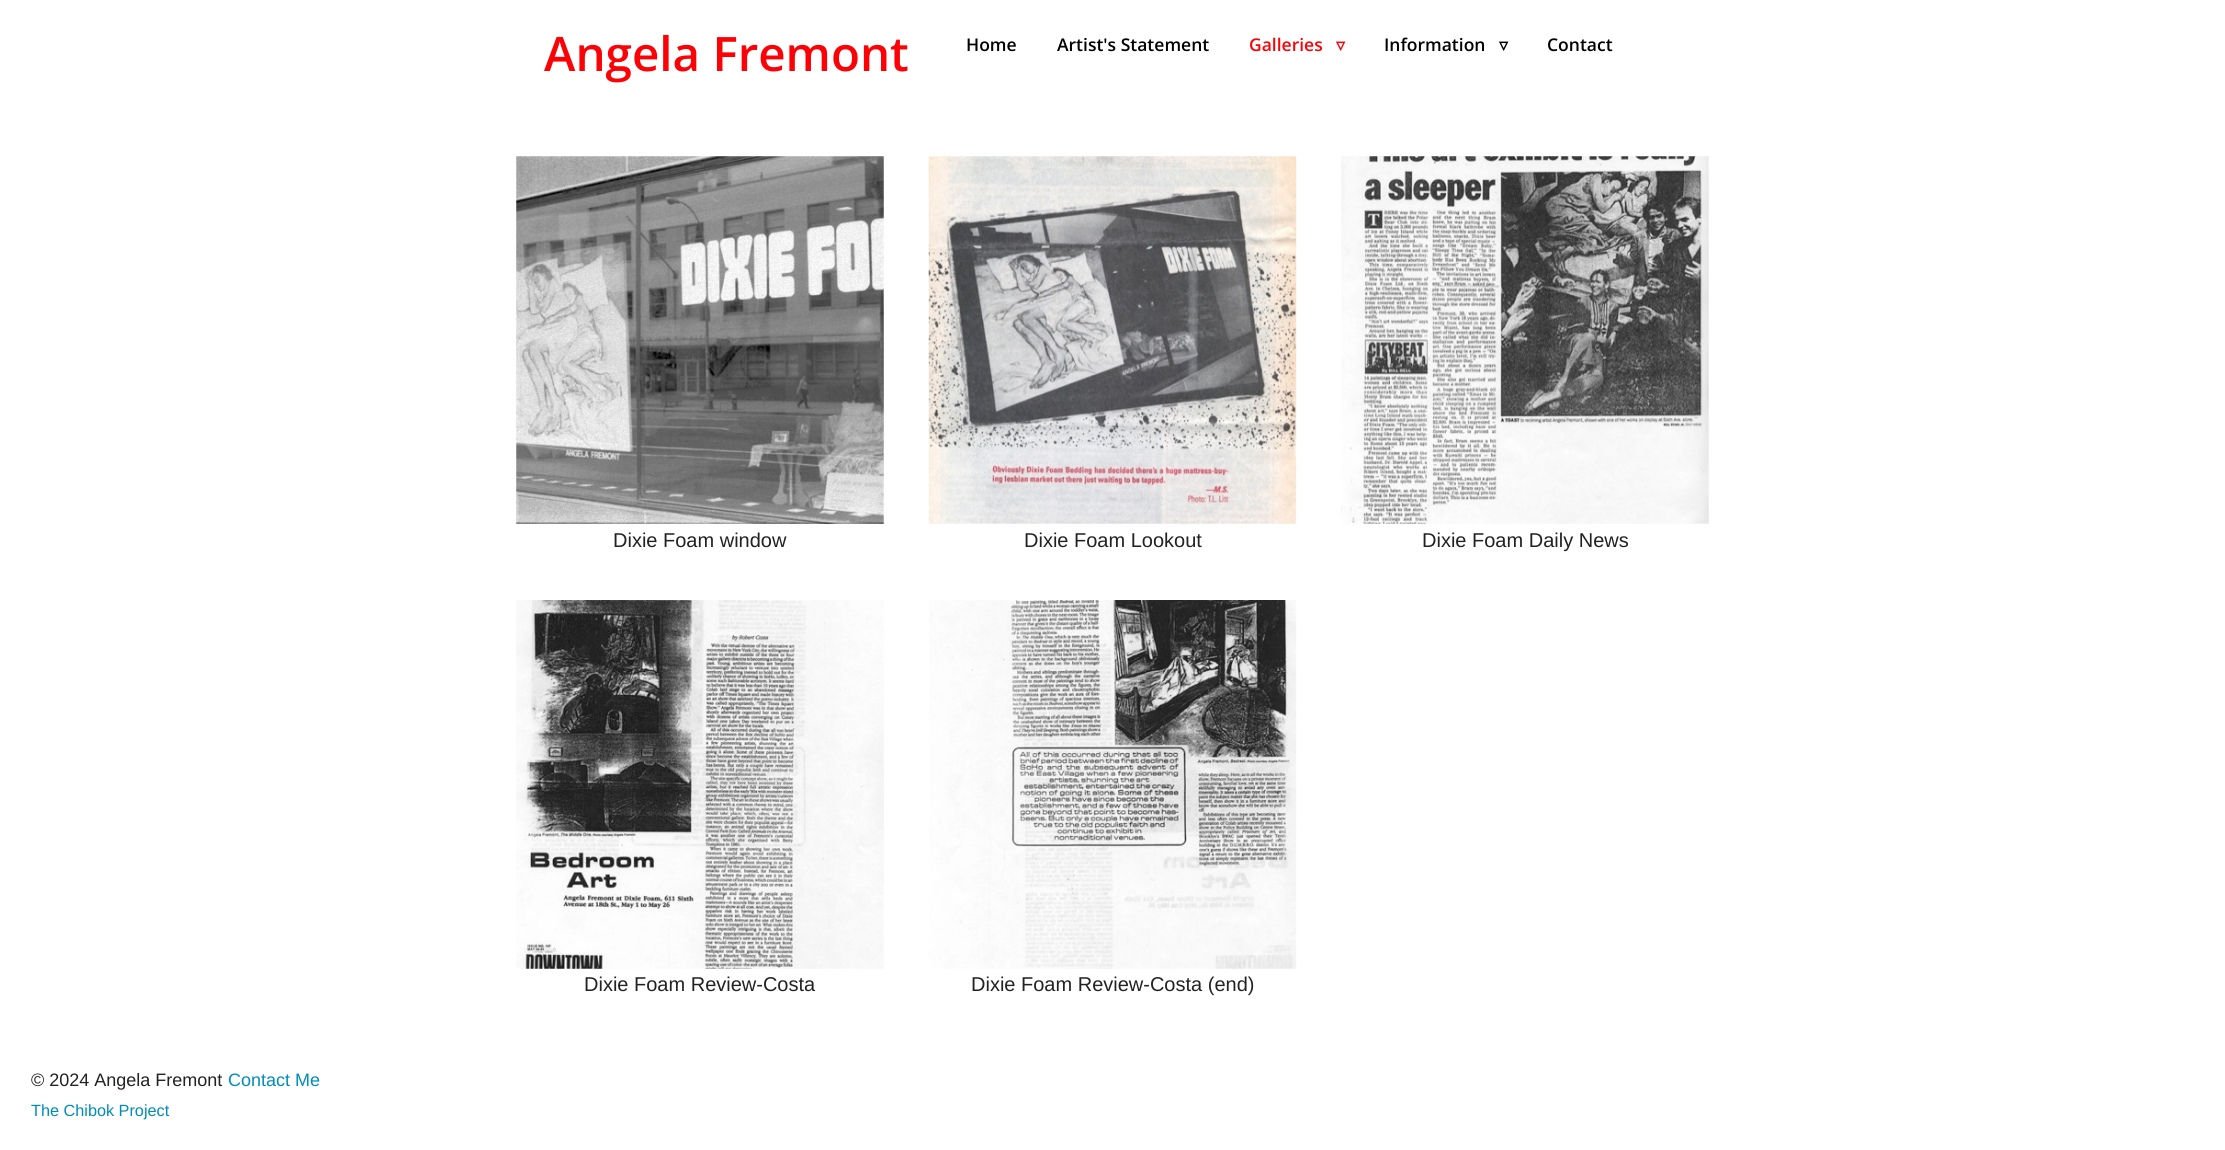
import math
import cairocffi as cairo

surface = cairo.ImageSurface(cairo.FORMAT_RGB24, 2225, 1150)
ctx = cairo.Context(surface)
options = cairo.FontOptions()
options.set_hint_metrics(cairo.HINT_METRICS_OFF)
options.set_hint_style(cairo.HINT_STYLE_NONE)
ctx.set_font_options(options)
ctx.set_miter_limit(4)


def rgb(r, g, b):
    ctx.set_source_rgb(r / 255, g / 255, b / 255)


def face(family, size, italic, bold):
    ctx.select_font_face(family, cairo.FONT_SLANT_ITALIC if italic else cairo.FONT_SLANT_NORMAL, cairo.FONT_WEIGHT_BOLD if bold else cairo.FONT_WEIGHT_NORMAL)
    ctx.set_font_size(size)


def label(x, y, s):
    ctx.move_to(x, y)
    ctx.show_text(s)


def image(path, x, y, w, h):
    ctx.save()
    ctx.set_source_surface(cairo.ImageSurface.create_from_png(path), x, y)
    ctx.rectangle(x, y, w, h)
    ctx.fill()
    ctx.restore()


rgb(255, 255, 255)
ctx.paint()
face('Open Sans SemiBold', 47.5, 0, 0)
rgb(251, 2, 7)
label(544, 71, 'Angela Fremont')
face('Open Sans SemiBold', 17.5, 0, 0)
rgb(0, 0, 0)
label(966, 51, 'Home')
label(1057, 51, 'Artist\'s Statement')
rgb(251, 2, 7)
label(1249, 51, 'Galleries')
face('DejaVu Sans', 17.5, 0, 1)
label(1336, 51, '▿')
face('Open Sans SemiBold', 17.5, 0, 0)
rgb(0, 0, 0)
label(1384, 51, 'Information')
face('DejaVu Sans', 17.5, 0, 1)
label(1499, 51, '▿')
face('Open Sans SemiBold', 17.5, 0, 0)
label(1547, 51, 'Contact')
image('image0.png', 516, 156, 368, 368)
face('Liberation Sans', 20, 0, 0)
rgb(34, 34, 34)
label(613, 547, 'Dixie Foam window')
image('image1.png', 928, 156, 369, 368)
label(1024, 547, 'Dixie Foam Lookout')
image('image2.png', 1341, 156, 368, 368)
label(1422, 547, 'Dixie Foam Daily News')
image('image3.png', 516, 600, 368, 369)
label(584, 991, 'Dixie Foam Review-Costa')
image('image4.png', 929, 600, 368, 369)
label(971, 991, 'Dixie Foam Review-Costa (end)')
face('Liberation Sans', 18, 0, 0)
label(31, 1086, '© 2024 Angela Fremont')
rgb(0, 140, 186)
label(228, 1086, 'Contact Me')
face('Liberation Sans', 16.25, 0, 0)
label(31, 1116, 'The Chibok Project')
surface.write_to_png('render.png')
